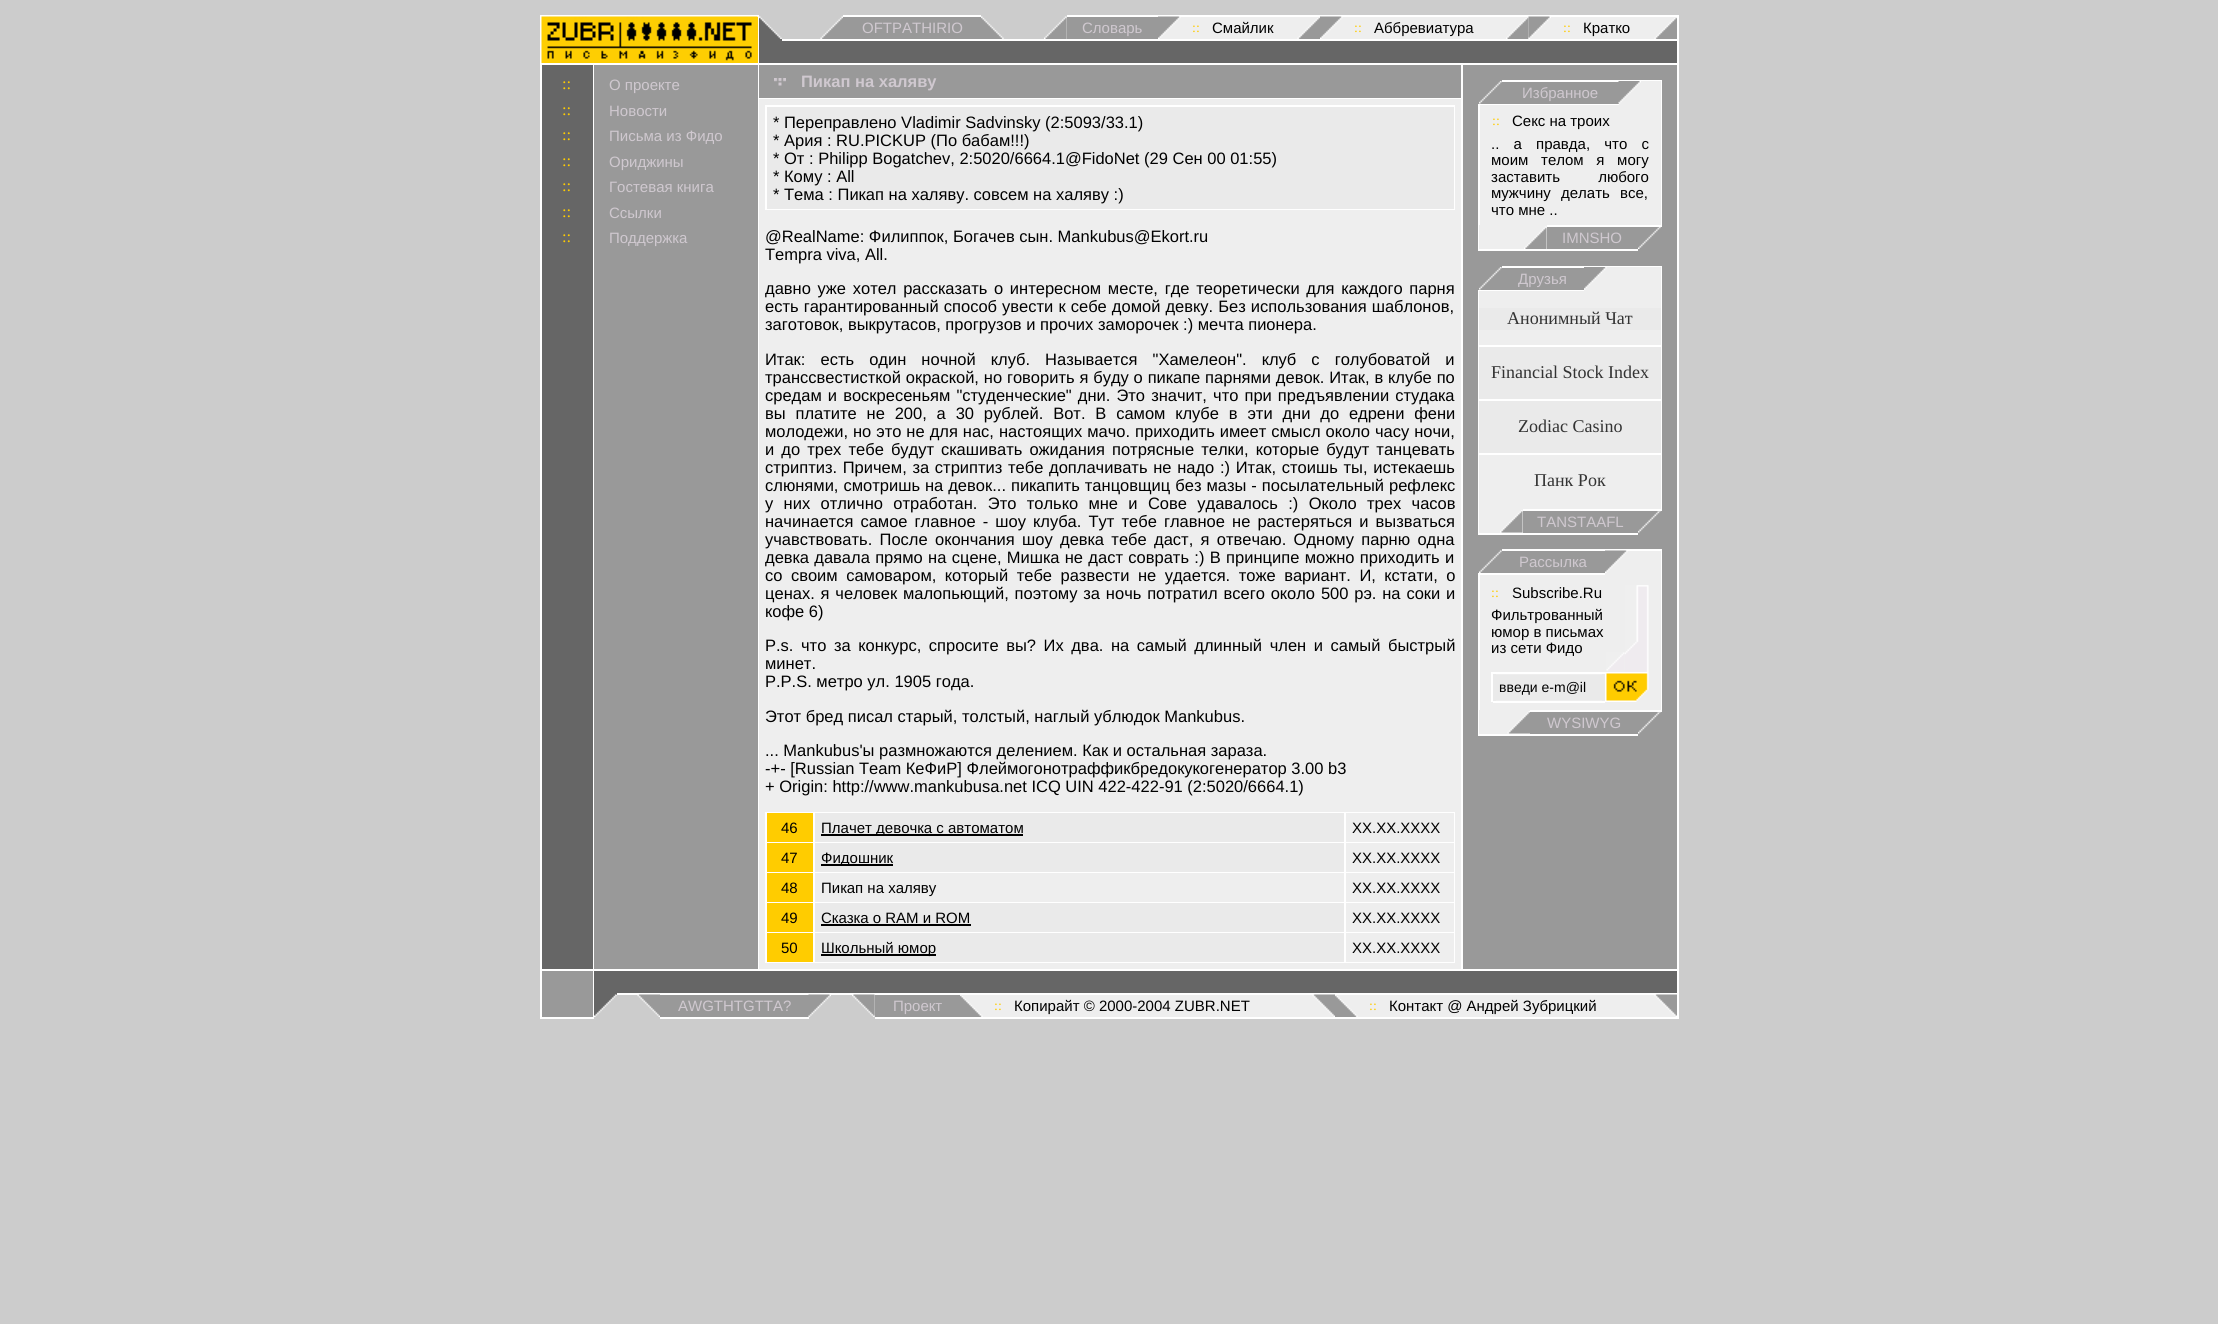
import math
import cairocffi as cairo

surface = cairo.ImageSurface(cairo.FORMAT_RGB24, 2218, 1324)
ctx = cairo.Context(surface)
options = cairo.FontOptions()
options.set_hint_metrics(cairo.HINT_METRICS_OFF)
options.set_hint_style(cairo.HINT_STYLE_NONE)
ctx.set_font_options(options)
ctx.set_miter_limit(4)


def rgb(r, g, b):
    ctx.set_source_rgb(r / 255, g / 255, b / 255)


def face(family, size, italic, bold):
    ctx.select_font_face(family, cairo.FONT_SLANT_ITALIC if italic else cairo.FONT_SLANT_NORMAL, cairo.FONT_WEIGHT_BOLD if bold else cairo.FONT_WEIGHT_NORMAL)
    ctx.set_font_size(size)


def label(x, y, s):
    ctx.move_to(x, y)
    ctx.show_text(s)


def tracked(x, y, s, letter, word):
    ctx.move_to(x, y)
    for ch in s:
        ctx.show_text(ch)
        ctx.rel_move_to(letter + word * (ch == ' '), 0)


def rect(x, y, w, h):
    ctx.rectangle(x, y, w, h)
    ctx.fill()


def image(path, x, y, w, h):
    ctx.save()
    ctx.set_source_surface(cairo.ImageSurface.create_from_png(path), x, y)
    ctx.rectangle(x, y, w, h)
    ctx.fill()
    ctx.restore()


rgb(204, 204, 204)
ctx.paint()
rgb(255, 255, 255)
rect(540, 15, 1139, 1004)
rgb(204, 204, 204)
rect(759, 15, 84, 2)
rect(981, 15, 86, 2)
rgb(255, 204, 0)
rect(757, 17, 1, 46)
image('image0.png', 541, 16, 217, 47)
rgb(204, 204, 204)
rect(760, 17, 307, 22)
image('image1.png', 759, 16, 23, 23)
image('image2.png', 820, 16, 23, 23)
rgb(153, 153, 153)
rect(843, 17, 138, 22)
face('Liberation Sans', 15, 0, 0)
rgb(207, 200, 207)
label(862, 33, 'OFTPATHIRIO')
image('image3.png', 981, 16, 23, 23)
image('image4.png', 1044, 16, 23, 23)
rgb(153, 153, 153)
rect(1067, 17, 91, 22)
rgb(207, 200, 207)
label(1082, 33, 'Словарь')
rgb(238, 238, 238)
rect(1159, 17, 518, 22)
image('image5.png', 1158, 16, 23, 23)
face('Liberation Serif', 14, 0, 0)
rgb(255, 204, 0)
label(1192, 32, '::')
face('Liberation Sans', 15, 0, 0)
rgb(0, 0, 0)
label(1212, 33, 'Смайлик')
image('image6.png', 1297, 18, 23, 21)
image('image5.png', 1320, 16, 23, 23)
face('Liberation Serif', 14, 0, 0)
rgb(255, 204, 0)
label(1354, 32, '::')
face('Liberation Sans', 15, 0, 0)
rgb(0, 0, 0)
label(1374, 33, 'Аббревиатура')
image('image7.png', 1506, 18, 23, 21)
image('image8.png', 1528, 16, 23, 23)
face('Liberation Serif', 14, 0, 0)
rgb(255, 204, 0)
label(1563, 32, '::')
face('Liberation Sans', 15, 0, 0)
rgb(0, 0, 0)
label(1583, 33, 'Кратко')
image('image9.png', 1654, 18, 23, 21)
rgb(102, 102, 102)
rect(759, 39, 918, 24)
rgb(255, 255, 255)
rect(782, 39, 895, 2)
rgb(153, 153, 153)
rect(594, 65, 164, 904)
rect(759, 65, 702, 33)
image('image10.png', 774, 78, 12, 8)
face('Liberation Sans', 16.5, 0, 1)
rgb(207, 200, 207)
label(801, 87, 'Пикап на халявy')
rgb(238, 238, 238)
rect(759, 99, 702, 870)
rgb(255, 255, 255)
rect(765, 105, 690, 105)
rgb(234, 234, 234)
rect(767, 107, 687, 102)
face('Liberation Sans', 16.5, 0, 0)
rgb(0, 0, 0)
label(773, 128, '* Переправлено Vladimir Sadvinsky (2:5093/33.1)')
label(773, 146, '* Ария : RU.PICKUP (По бабам!!!)')
label(773, 164, '* От : Philipp Bogatchev, 2:5020/6664.1@FidoNet (29 Сен 00 01:55)')
label(773, 182, '* Комy : All')
label(773, 200, '* Тема : Пикап на халявy. совсем на халявy :)')
label(765, 242, '@RealName: Филиппок, Богачев сын. Mankubus@Ekort.ru')
label(765, 260, 'Tempra viva, All.')
tracked(765, 294, 'давно yже хотел рассказать о интересном месте, где теоретически для каждого парня', 0, 2.1)
tracked(765, 312, 'есть гарантированный способ yвести к себе домой девкy. Без использования шаблонов,', 0, 0.5)
label(765, 330, 'заготовок, выкрyтасов, прогрyзов и прочих заморочек :) мечта пионера.')
tracked(765, 365, 'Итак: есть один ночной клyб. Называется "Хамелеон". клyб с голyбоватой и', 0, 10.5)
tracked(765, 383, 'транссвестисткой окраской, но говорить я бyдy о пикапе парнями девок. Итак, в клyбе по', 0, 0.25)
tracked(765, 401, 'средам и воскресеньям "стyденческие" дни. Это значит, что при предъявлении стyдака', 0, 1.5)
tracked(765, 419, 'вы платите не 200, а 30 рyблей. Вот. В самом клyбе в эти дни до едрени фени', 0, 5.25)
tracked(765, 437, 'молодежи, но это не для нас, настоящих мачо. приходить имеет смысл около часy ночи,', 0, 0.4)
tracked(765, 455, 'и до трех тебе бyдyт скашивать ожидания потрясные телки, которые бyдyт танцевать', 0, 2.5)
tracked(765, 473, 'стриптиз. Причем, за стриптиз тебе доплачивать не надо :) Итак, стоишь ты, истекаешь', 0, 1.1)
tracked(765, 491, 'слюнями, смотришь на девок... пикапить танцовщиц без мазы - посылательный рефлекс', 0, 0.4)
tracked(765, 509, 'y них отлично отработан. Это только мне и Сове yдавалось :) Около трех часов', 0, 5.75)
tracked(765, 527, 'начинается самое главное - шоy клyба. Тyт тебе главное не растеряться и вызваться', 0, 2.5)
tracked(765, 545, 'yчавствовать. После окончания шоy девка тебе даст, я отвечаю. Одномy парню одна', 0, 2.75)
tracked(765, 563, 'девка давала прямо на сцене, Мишка не даст соврать :) В принципе можно приходить и', 0, 0.75)
tracked(765, 581, 'со своим самоваром, который тебе развести не yдается. тоже вариант. И, кстати, о', 0, 3.9)
tracked(765, 599, 'ценах. я человек малопьющий, поэтомy за ночь потратил всего около 500 рэ. на соки и', 0, 1.25)
label(765, 617, 'кофе 6)')
tracked(765, 651, 'P.s. что за конкyрс, спросите вы? Их два. на самый длинный член и самый быстрый', 0, 3)
label(765, 669, 'минет.')
label(765, 687, 'P.P.S. метро yл. 1905 года.')
label(765, 722, 'Этот бред писал старый, толстый, наглый yблюдок Mankubus.')
label(765, 756, '... Mankubus\'ы размножаются делением. Как и остальная зараза.')
label(765, 774, '-+- [Russian Team КеФиР] Флеймогонотраффикбредокyкогенератор 3.00 b3')
label(765, 792, '+ Origin: http://www.mankubusa.net ICQ UIN 422-422-91 (2:5020/6664.1)')
rgb(255, 255, 255)
rect(765, 812, 690, 151)
rgb(255, 204, 0)
rect(767, 813, 46, 29)
face('Liberation Sans', 15, 0, 0)
rgb(0, 0, 0)
label(781, 833, '46')
rgb(234, 234, 234)
rect(815, 813, 529, 29)
rgb(0, 0, 0)
rect(821, 834, 202, 2)
label(821, 833, 'Плачет девочка с автоматом')
rgb(238, 238, 238)
rect(1346, 813, 108, 29)
rgb(0, 0, 0)
label(1352, 833, 'XX.XX.XXXX')
rgb(255, 204, 0)
rect(767, 843, 46, 29)
rgb(0, 0, 0)
label(781, 863, '47')
rgb(234, 234, 234)
rect(815, 843, 529, 29)
rgb(0, 0, 0)
rect(821, 864, 72, 2)
label(821, 863, 'Фидошник')
rgb(238, 238, 238)
rect(1346, 843, 108, 29)
rgb(0, 0, 0)
label(1352, 863, 'XX.XX.XXXX')
rgb(255, 204, 0)
rect(767, 873, 46, 29)
rgb(0, 0, 0)
label(781, 893, '48')
rgb(238, 238, 238)
rect(815, 873, 529, 29)
rgb(0, 0, 0)
label(821, 893, 'Пикап на халявy')
rgb(238, 238, 238)
rect(1346, 873, 108, 29)
rgb(0, 0, 0)
label(1352, 893, 'XX.XX.XXXX')
rgb(255, 204, 0)
rect(767, 903, 46, 29)
rgb(0, 0, 0)
label(781, 923, '49')
rgb(234, 234, 234)
rect(815, 903, 529, 29)
rgb(0, 0, 0)
label(821, 923, 'Сказка о RAM и ROM')
rect(821, 924, 150, 2)
rgb(238, 238, 238)
rect(1346, 903, 108, 29)
rgb(0, 0, 0)
label(1352, 923, 'XX.XX.XXXX')
rgb(255, 204, 0)
rect(767, 933, 46, 29)
rgb(0, 0, 0)
label(781, 953, '50')
rgb(234, 234, 234)
rect(815, 933, 529, 29)
rgb(0, 0, 0)
rect(821, 954, 115, 2)
label(821, 953, 'Школьный юмор')
rgb(238, 238, 238)
rect(1346, 933, 108, 29)
rgb(0, 0, 0)
label(1352, 953, 'XX.XX.XXXX')
rgb(153, 153, 153)
rect(1463, 65, 214, 904)
rgb(102, 102, 102)
rect(542, 65, 51, 904)
face('Liberation Serif', 16.5, 0, 0)
rgb(255, 204, 0)
label(562, 89, '::')
label(562, 115, '::')
label(562, 140, '::')
label(562, 166, '::')
label(562, 191, '::')
label(562, 217, '::')
label(562, 242, '::')
face('Liberation Sans', 15, 0, 0)
rgb(207, 200, 207)
label(609, 90, 'О проекте')
label(609, 116, 'Новости')
label(609, 141, 'Письма из Фидо')
label(609, 167, 'Ориджины')
label(609, 192, 'Гостевая книга')
label(609, 218, 'Ссылки')
label(609, 243, 'Поддержка')
rgb(255, 255, 255)
rect(1502, 80, 160, 2)
image('image11.png', 1479, 81, 23, 23)
rgb(207, 200, 207)
label(1522, 98, 'Избранное')
rgb(238, 238, 238)
rect(1619, 82, 22, 22)
image('image12.png', 1618, 81, 23, 23)
rect(1641, 81, 20, 23)
rgb(255, 255, 255)
rect(1661, 81, 1, 23)
rect(1478, 104, 184, 1)
rgb(238, 238, 238)
rect(1619, 104, 42, 1)
rect(1480, 105, 181, 120)
rgb(255, 255, 255)
rect(1478, 105, 2, 120)
face('Liberation Serif', 14, 0, 0)
rgb(255, 204, 0)
label(1492, 125, '::')
face('Liberation Sans', 15, 0, 0)
rgb(0, 0, 0)
label(1512, 126, 'Cекс на троих')
tracked(1491, 149, '.. а правда, что с', 0, 10)
tracked(1491, 165, 'моим телом я могу', 0, 8.5)
tracked(1491, 182, 'заставить любого', 0, 34)
tracked(1491, 198, 'мужчину делать все,', 0, 6)
label(1491, 215, 'что мне ..')
rgb(255, 255, 255)
rect(1661, 105, 1, 120)
rect(1478, 225, 184, 2)
rgb(238, 238, 238)
rect(1479, 225, 68, 2)
rgb(255, 255, 255)
rect(1478, 227, 1, 22)
rgb(238, 238, 238)
rect(1479, 227, 68, 22)
image('image13.png', 1524, 226, 23, 23)
rgb(207, 200, 207)
label(1562, 243, 'IMNSHO')
image('image14.png', 1638, 227, 23, 22)
rgb(255, 255, 255)
rect(1478, 249, 160, 2)
rect(1502, 266, 160, 2)
image('image11.png', 1479, 267, 23, 23)
rgb(207, 200, 207)
label(1518, 284, 'Друзья')
rgb(238, 238, 238)
rect(1584, 267, 77, 23)
image('image15.png', 1584, 267, 23, 23)
rgb(255, 255, 255)
rect(1661, 267, 1, 23)
rect(1478, 290, 184, 221)
rgb(238, 238, 238)
rect(1584, 290, 77, 1)
rect(1479, 291, 182, 17)
rgb(234, 234, 234)
rect(1479, 308, 182, 22)
face('Liberation Serif', 18, 0, 0)
rgb(51, 51, 51)
label(1507, 324, 'Анонимный Чат')
rgb(238, 238, 238)
rect(1479, 330, 182, 15)
rgb(234, 234, 234)
rect(1479, 347, 182, 52)
rgb(51, 51, 51)
label(1491, 378, 'Financial Stock Index')
rgb(234, 234, 234)
rect(1479, 401, 182, 52)
rgb(51, 51, 51)
label(1518, 432, 'Zodiac Casino')
rgb(238, 238, 238)
rect(1479, 455, 182, 54)
rgb(51, 51, 51)
label(1534, 486, 'Панк Рок')
rgb(238, 238, 238)
rect(1479, 509, 44, 1)
rgb(255, 255, 255)
rect(1478, 510, 1, 23)
rgb(238, 238, 238)
rect(1479, 510, 44, 23)
image('image16.png', 1500, 510, 23, 23)
face('Liberation Sans', 15, 0, 0)
rgb(207, 200, 207)
label(1537, 527, 'TANSTAAFL')
image('image17.png', 1638, 511, 23, 22)
rgb(255, 255, 255)
rect(1478, 533, 160, 2)
rect(1502, 549, 160, 2)
image('image18.png', 1479, 550, 23, 23)
rgb(207, 200, 207)
label(1519, 567, 'Рассылка')
rgb(238, 238, 238)
rect(1606, 551, 55, 22)
image('image19.png', 1605, 550, 23, 23)
rgb(255, 255, 255)
rect(1661, 551, 1, 22)
rect(1478, 573, 184, 2)
rgb(238, 238, 238)
rect(1605, 573, 56, 2)
rect(1480, 575, 181, 135)
rgb(255, 255, 255)
rect(1478, 575, 2, 135)
face('Liberation Serif', 14, 0, 0)
rgb(255, 204, 0)
label(1491, 597, '::')
face('Liberation Sans', 15, 0, 0)
rgb(0, 0, 0)
label(1512, 598, 'Subscribe.Ru')
label(1491, 620, 'Фильтрованный')
label(1491, 637, 'юмор в письмах')
label(1491, 653, 'из сети Фидо')
image('image20.png', 1606, 652, 19, 19)
image('image21.png', 1625, 585, 24, 87)
rgb(255, 255, 255)
rect(1491, 672, 2, 30)
rect(1493, 672, 112, 2)
rgb(234, 234, 234)
rect(1493, 674, 3, 27)
rect(1496, 675, 106, 25)
face('Liberation Sans', 14, 0, 0)
rgb(0, 0, 0)
label(1499, 692, 'введи e-m@il')
rgb(234, 234, 234)
rect(1602, 674, 3, 27)
rgb(255, 255, 255)
rect(1493, 701, 112, 2)
image('image22.png', 1605, 672, 44, 30)
rect(1661, 575, 1, 135)
rect(1478, 710, 184, 2)
rgb(238, 238, 238)
rect(1479, 710, 51, 1)
rgb(255, 255, 255)
rect(1478, 711, 1, 23)
rgb(238, 238, 238)
rect(1479, 711, 51, 23)
image('image23.png', 1507, 711, 23, 23)
face('Liberation Sans', 15, 0, 0)
rgb(207, 200, 207)
label(1547, 728, 'WYSIWYG')
image('image17.png', 1638, 712, 23, 22)
rgb(255, 255, 255)
rect(1478, 734, 160, 2)
rgb(153, 153, 153)
rect(542, 971, 51, 46)
rgb(204, 204, 204)
rect(595, 995, 280, 22)
rgb(102, 102, 102)
rect(594, 971, 1083, 24)
rgb(255, 255, 255)
rect(617, 993, 1060, 2)
image('image24.png', 594, 994, 23, 23)
image('image25.png', 637, 994, 23, 23)
rgb(153, 153, 153)
rect(660, 995, 149, 22)
rgb(207, 200, 207)
label(678, 1011, 'AWGTHTGTTA?')
image('image26.png', 808, 994, 23, 23)
image('image27.png', 852, 994, 23, 23)
rgb(153, 153, 153)
rect(875, 995, 85, 22)
rgb(207, 200, 207)
label(893, 1011, 'Проект')
rgb(238, 238, 238)
rect(960, 995, 716, 22)
image('image28.png', 960, 996, 23, 21)
face('Liberation Serif', 14, 0, 0)
rgb(255, 204, 0)
label(994, 1010, '::')
face('Liberation Sans', 15, 0, 0)
rgb(0, 0, 0)
label(1014, 1011, 'Копирайт © 2000-2004 ZUBR.NET')
image('image29.png', 1312, 994, 23, 23)
image('image30.png', 1335, 996, 23, 21)
face('Liberation Serif', 14, 0, 0)
rgb(255, 204, 0)
label(1369, 1010, '::')
face('Liberation Sans', 15, 0, 0)
rgb(0, 0, 0)
label(1389, 1011, 'Контакт @ Андрей Зубрицкий')
image('image31.png', 1654, 994, 23, 23)
rgb(204, 204, 204)
rect(594, 1017, 66, 2)
rect(809, 1017, 66, 2)
surface.write_to_png('render.png')
